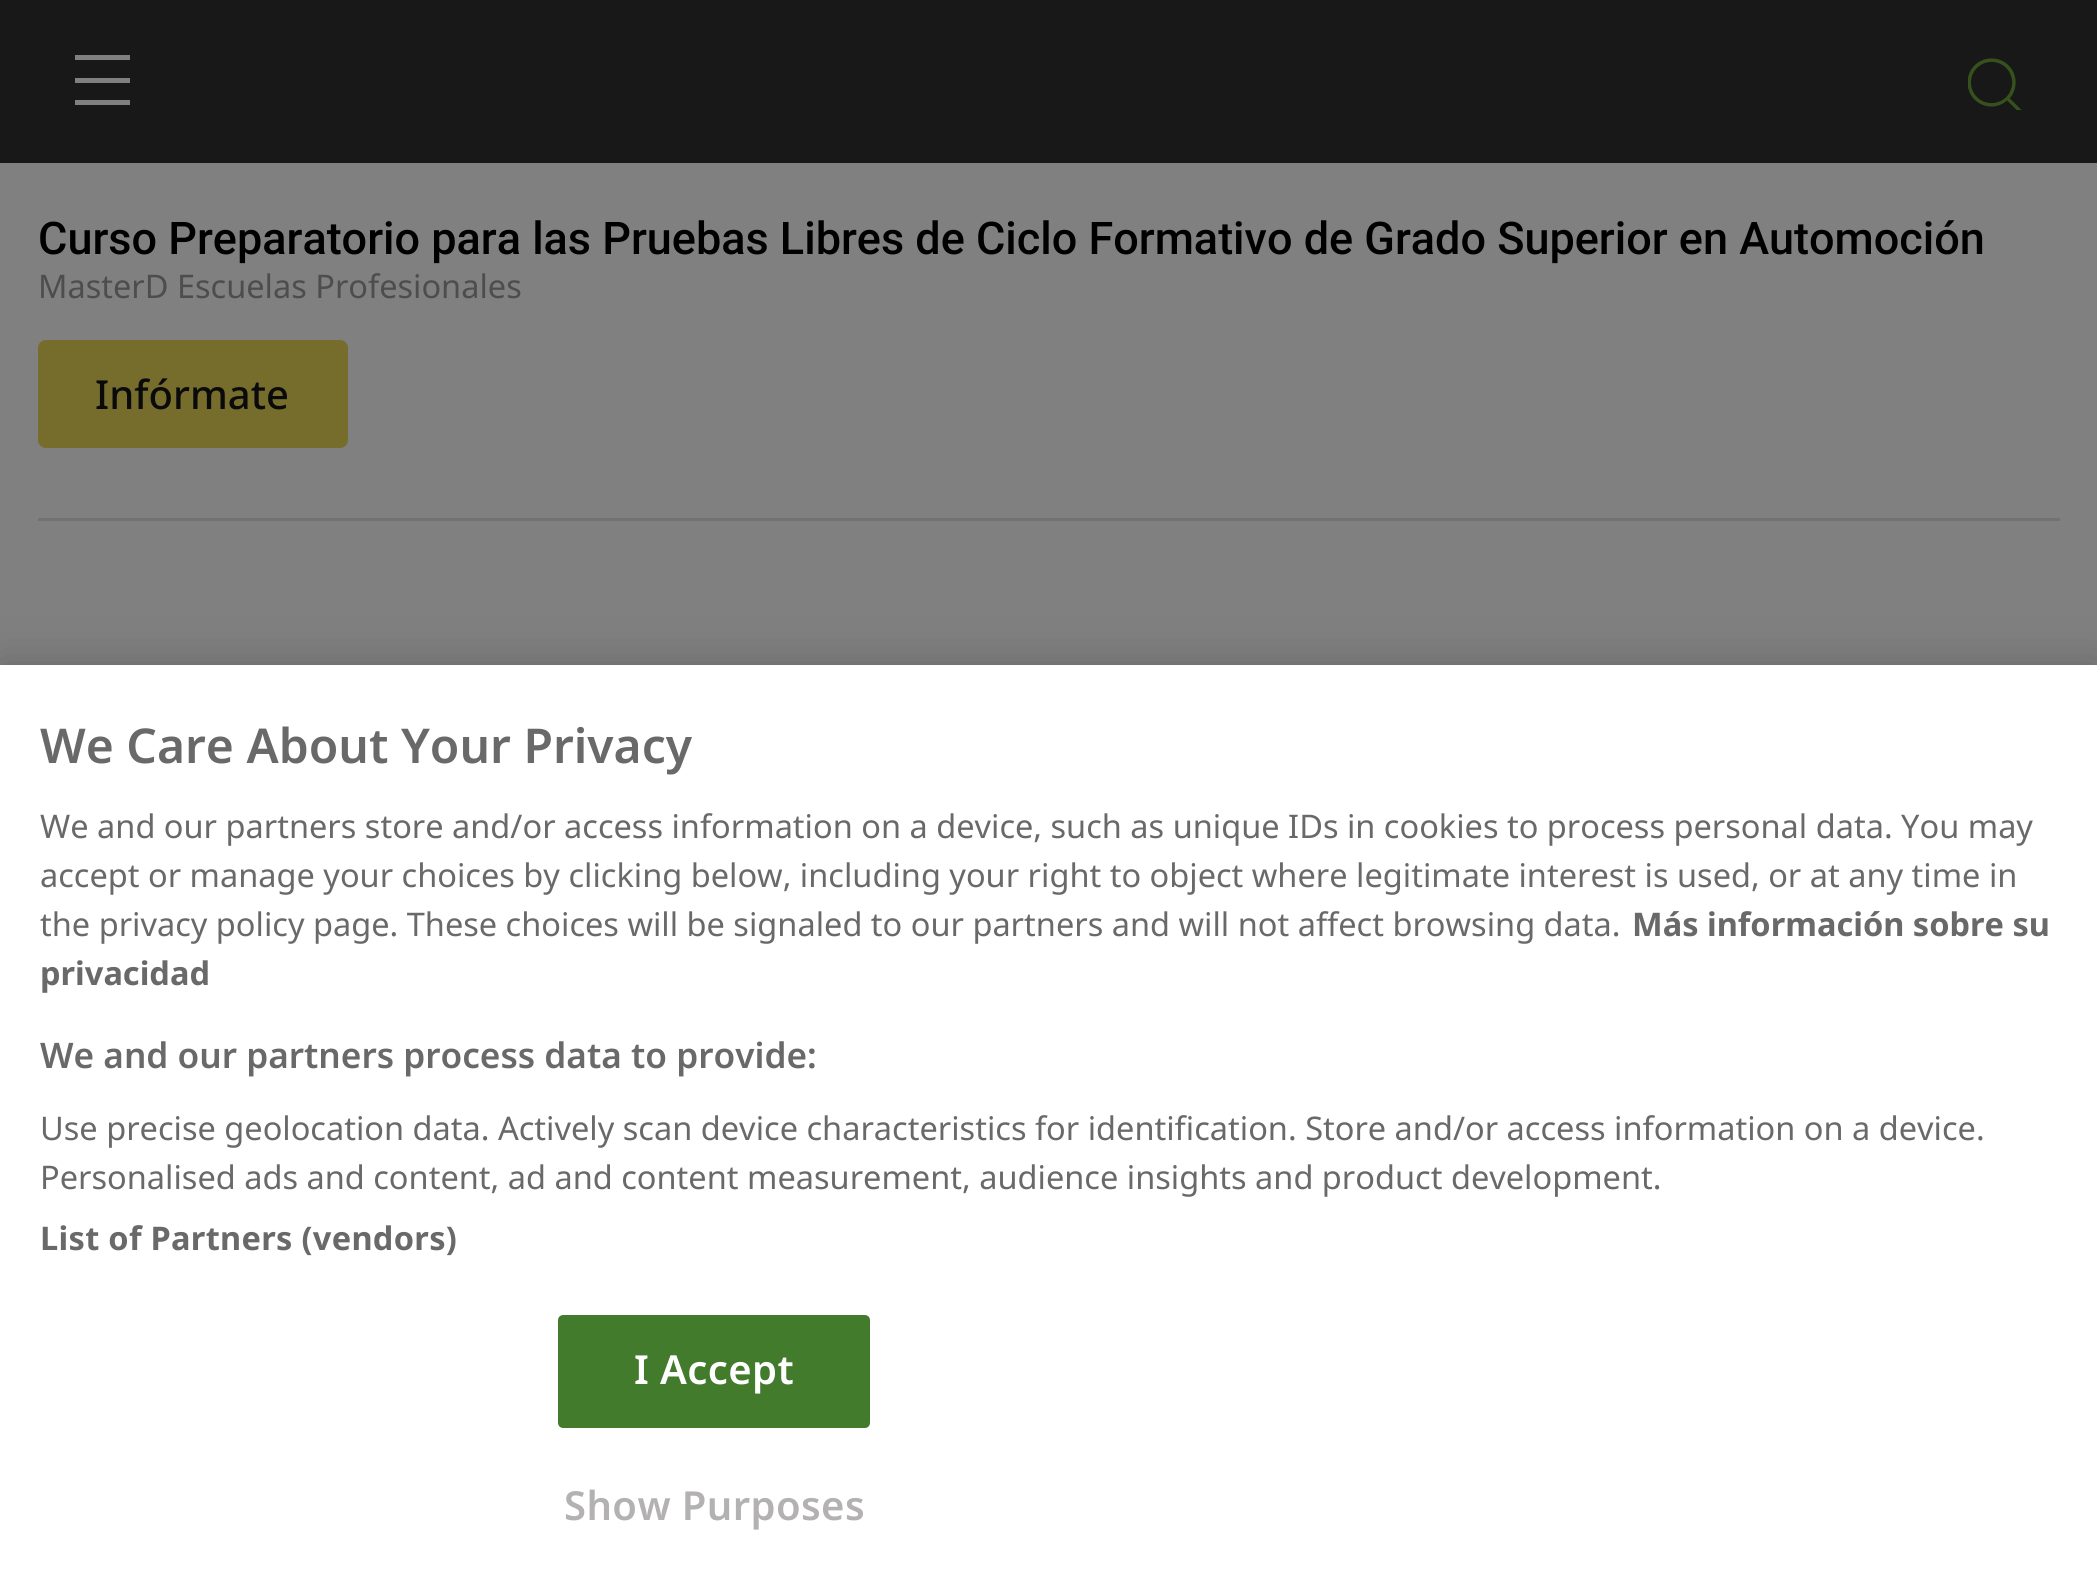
import math
import cairocffi as cairo

surface = cairo.ImageSurface(cairo.FORMAT_RGB24, 2097, 1583)
ctx = cairo.Context(surface)
options = cairo.FontOptions()
options.set_hint_metrics(cairo.HINT_METRICS_OFF)
options.set_hint_style(cairo.HINT_STYLE_NONE)
ctx.set_font_options(options)
ctx.set_miter_limit(4)


def rgb(r, g, b):
    ctx.set_source_rgb(r / 255, g / 255, b / 255)


def face(family, size, italic, bold):
    ctx.select_font_face(family, cairo.FONT_SLANT_ITALIC if italic else cairo.FONT_SLANT_NORMAL, cairo.FONT_WEIGHT_BOLD if bold else cairo.FONT_WEIGHT_NORMAL)
    ctx.set_font_size(size)


def label(x, y, s):
    ctx.move_to(x, y)
    ctx.show_text(s)


def tracked(x, y, s, letter, word):
    ctx.move_to(x, y)
    for ch in s:
        ctx.show_text(ch)
        ctx.rel_move_to(letter + word * (ch == ' '), 0)


def rect(x, y, w, h):
    ctx.rectangle(x, y, w, h)
    ctx.fill()


def rrect(x, y, w, h, r):
    ctx.new_sub_path()
    for i, (u, v) in enumerate([(x + w - r, y + h - r), (x + r, y + h - r), (x + r, y + r), (x + w - r, y + r)]):
        ctx.arc(u, v, r, i * math.pi / 2, (i + 1) * math.pi / 2)
    ctx.close_path()


def soft_shadow(x, y, w, h, r, blur, alpha):
    ctx.push_group_with_content(cairo.CONTENT_ALPHA)
    ctx.set_operator(cairo.OPERATOR_SOURCE)
    for i in range(15, -16, -2):
        e = blur * i / 6
        if min(w, h) + 2 * e > 0:
            ctx.set_source_rgba(0, 0, 0, alpha * math.erfc((i - 1) / 8.5) / 2)
            rrect(x - e, y - e, w + 2 * e, h + 2 * e, max(0, min(r + e + blur * .6, min(w, h) / 2 + e)))
            ctx.fill()
    ctx.mask(ctx.pop_group())


def image(path, x, y, w, h):
    ctx.save()
    ctx.set_source_surface(cairo.ImageSurface.create_from_png(path), x, y)
    ctx.rectangle(x, y, w, h)
    ctx.fill()
    ctx.restore()


rgb(128, 128, 128)
ctx.paint()
rgb(24, 24, 24)
rect(0, 0, 2097, 163)
rgb(128, 128, 128)
rect(75, 55, 55, 5)
rect(75, 78, 55, 5)
rect(75, 100, 55, 5)
image('image0.png', 1968, 58, 54, 52)
face('Roboto Medium', 45, 0, 0)
rgb(0, 0, 0)
label(38, 254, 'Curso Preparatorio para las Pruebas Libres de Ciclo Formativo de Grado Superior en Automoción')
face('Noto Sans', 32.5, 0, 0)
rgb(77, 77, 77)
label(38, 298, 'MasterD Escuelas Profesionales')
rgb(118, 108, 44)
rrect(39.5, 341.5, 307, 105, 6.5)
ctx.fill_preserve()
ctx.set_line_width(3)
ctx.stroke()
face('Noto Sans Medium', 40, 0, 0)
rgb(10, 10, 10)
label(95, 409, 'Infórmate')
rgb(114, 114, 114)
rect(38, 518, 2022, 3)
rgb(0, 0, 0)
soft_shadow(0, 665, 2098, 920, 0, 22.5, 0.2)
rgb(255, 255, 255)
rect(0, 665, 2097, 918)
face('Noto Sans SemiBold', 48, 0, 0)
rgb(105, 105, 105)
label(40, 763, 'We Care About Your Privacy')
face('Noto Sans', 32.52, 0, 0)
label(40, 838, 'We and our partners store and/or access information on a device, such as unique IDs in cookies to process personal data. You may')
label(40, 887, 'accept or manage your choices by clicking below, including your right to object where legitimate interest is used, or at any time in')
label(40, 936, 'the privacy policy page. These choices will be signaled to our partners and will not affect browsing data.')
face('Noto Sans', 32.52, 0, 1)
label(1632, 936, 'Más información sobre su')
label(40, 985, 'privacidad')
face('Noto Sans SemiBold', 35.2, 0, 0)
label(40, 1068, 'We and our partners process data to provide:')
face('Noto Sans', 32.52, 0, 0)
label(40, 1140, 'Use precise geolocation data. Actively scan device characteristics for identification. Store and/or access information on a device.')
label(40, 1189, 'Personalised ads and content, ad and content measurement, audience insights and product development.')
face('Noto Sans', 32.52, 0, 1)
tracked(40, 1250, 'List of Partners (vendors)', 0.3, 0)
rgb(67, 123, 45)
rrect(559.5, 1316.5, 309, 110, 3.5)
ctx.fill_preserve()
ctx.stroke()
face('Noto Sans SemiBold', 40, 0, 0)
rgb(255, 255, 255)
tracked(634, 1384, 'I Accept', 0.4, 0)
rgb(179, 177, 177)
tracked(564, 1520, 'Show Purposes', 0.4, 0)
surface.write_to_png('render.png')
